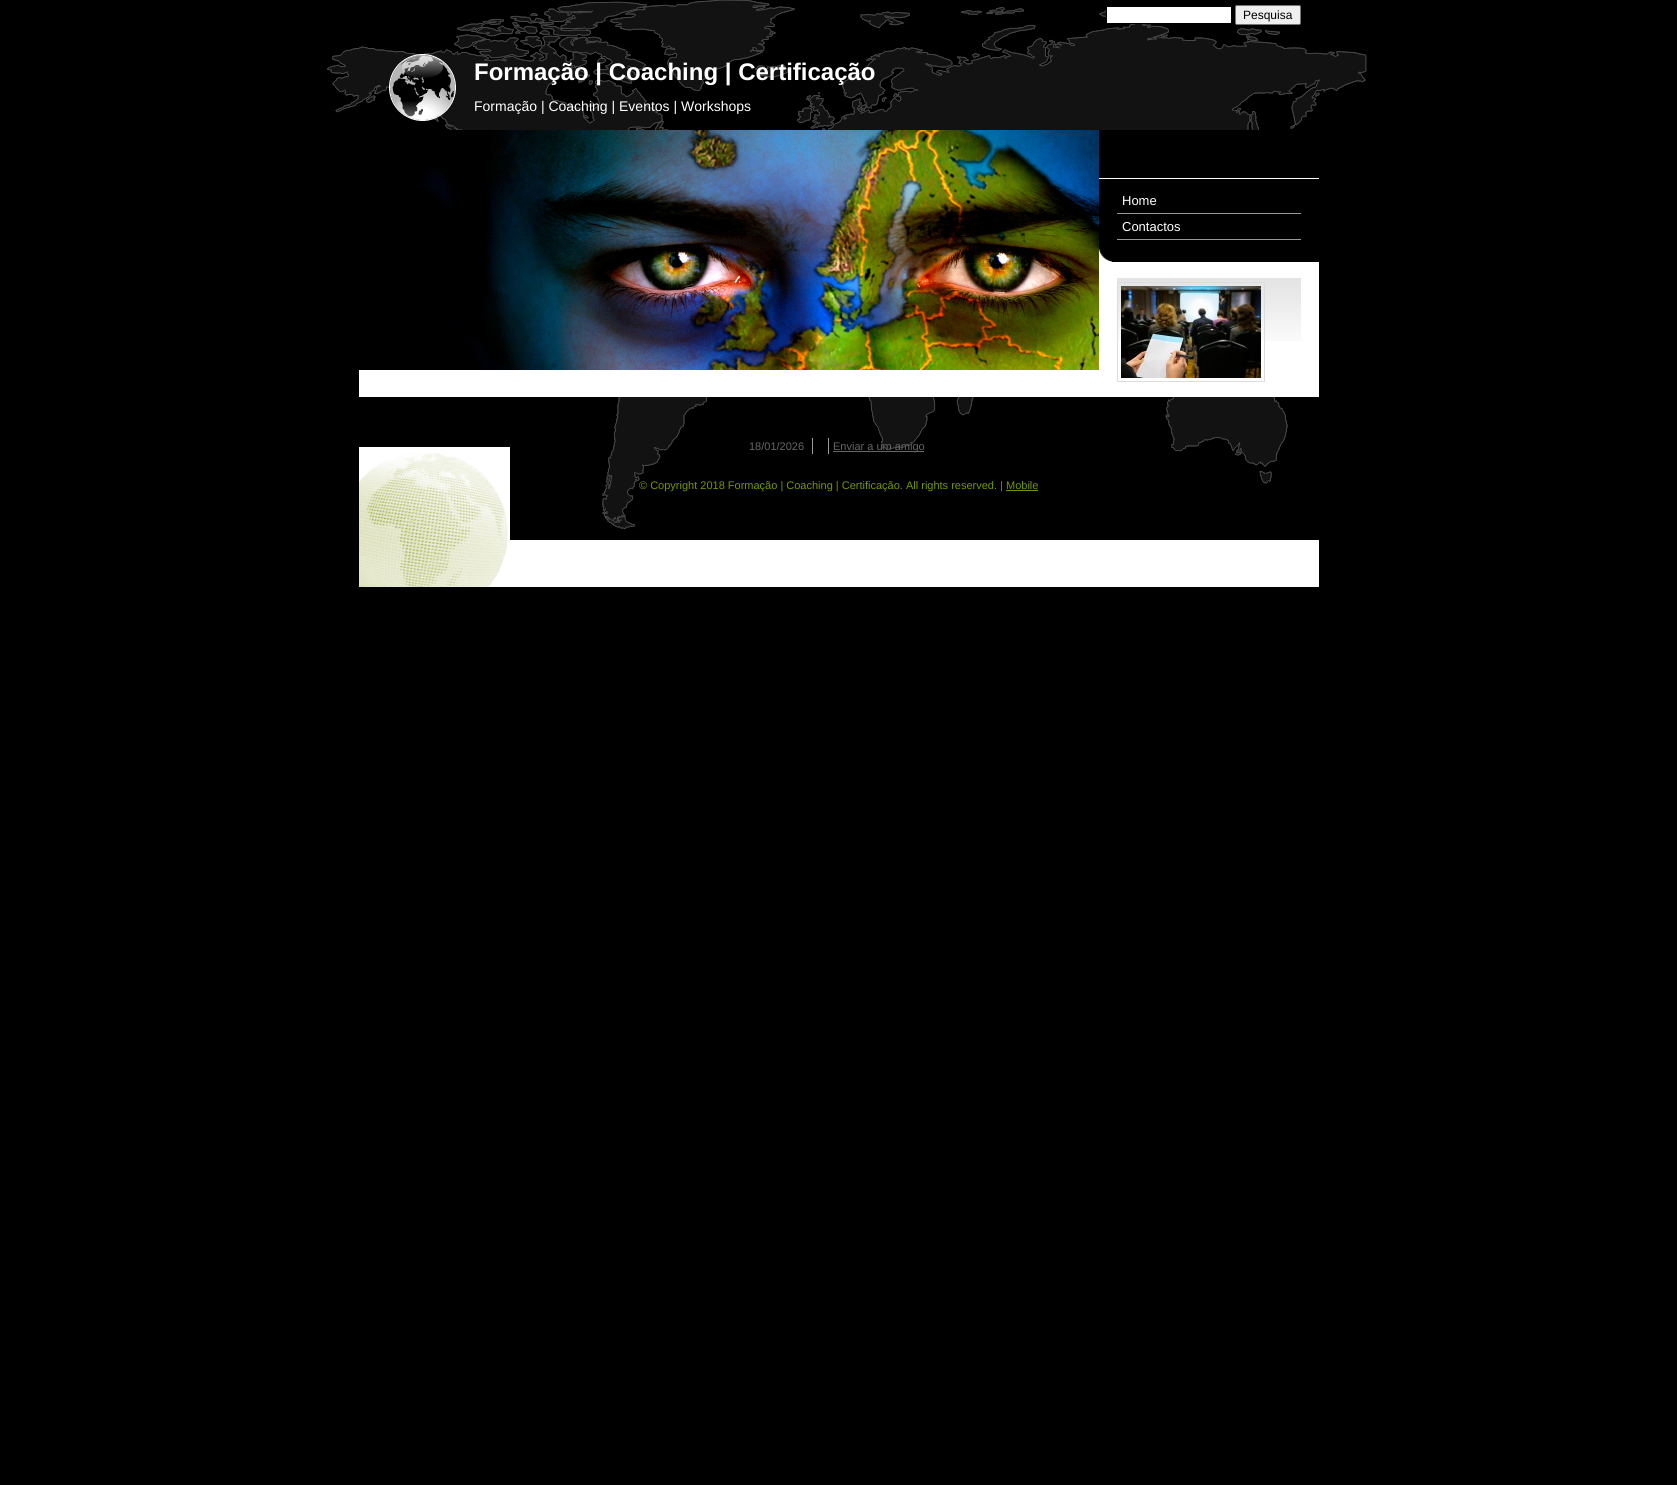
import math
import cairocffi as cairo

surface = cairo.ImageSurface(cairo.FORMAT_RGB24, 1677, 1485)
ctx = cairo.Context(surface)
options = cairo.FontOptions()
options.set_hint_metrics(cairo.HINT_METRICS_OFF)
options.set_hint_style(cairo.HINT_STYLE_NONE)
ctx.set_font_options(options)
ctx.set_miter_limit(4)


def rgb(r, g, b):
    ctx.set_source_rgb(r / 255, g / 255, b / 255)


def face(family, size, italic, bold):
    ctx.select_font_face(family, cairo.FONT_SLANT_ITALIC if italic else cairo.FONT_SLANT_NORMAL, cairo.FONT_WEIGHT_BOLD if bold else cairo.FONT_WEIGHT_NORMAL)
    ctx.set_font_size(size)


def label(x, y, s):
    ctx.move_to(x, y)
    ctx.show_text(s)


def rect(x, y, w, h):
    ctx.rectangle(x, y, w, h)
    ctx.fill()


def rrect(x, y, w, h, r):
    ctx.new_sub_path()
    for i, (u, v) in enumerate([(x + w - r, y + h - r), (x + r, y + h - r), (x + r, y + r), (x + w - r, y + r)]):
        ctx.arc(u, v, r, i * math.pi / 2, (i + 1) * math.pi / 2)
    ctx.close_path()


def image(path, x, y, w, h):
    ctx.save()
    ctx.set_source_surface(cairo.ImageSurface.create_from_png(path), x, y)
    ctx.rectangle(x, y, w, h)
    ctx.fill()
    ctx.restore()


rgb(0, 0, 0)
ctx.paint()
image('image0.png', 327, 0, 1040, 529)
rgb(255, 255, 255)
rect(510, 540, 809, 47)
image('image1.png', 359, 0, 960, 540)
image('image2.png', 359, 447, 151, 140)
ctx.rectangle(1106.5, 6.5, 125, 17)
ctx.fill_preserve()
rgb(0, 0, 0)
ctx.set_line_width(1)
ctx.stroke()
rgb(239, 239, 239)
rrect(1235.5, 5.5, 65, 19, 1.5)
ctx.fill_preserve()
rgb(118, 118, 118)
ctx.stroke()
face('Liberation Sans', 12, 0, 0)
rgb(0, 0, 0)
label(1243, 19, 'Pesquisa')
image('image3.png', 389, 54, 67, 67)
face('Liberation Sans', 24, 0, 1)
rgb(255, 255, 255)
label(474, 80, 'Formação | Coaching | Certificação')
face('Liberation Sans', 14, 0, 0)
label(474, 111, 'Formação | Coaching | Eventos | Workshops')
image('image4.png', 423, 130, 676, 240)
rect(359, 370, 740, 27)
rect(1099, 262, 220, 135)
rgb(0, 0, 0)
rect(1099, 130, 184, 132)
image('image5.png', 1099, 249, 13, 13)
rgb(255, 255, 255)
rect(1099, 178, 220, 1)
rgb(153, 153, 153)
rect(1117, 213, 184, 1)
face('Liberation Sans', 13, 0, 0)
rgb(255, 255, 255)
label(1122, 205, 'Home')
rgb(153, 153, 153)
rect(1117, 239, 184, 1)
rgb(255, 255, 255)
label(1122, 231, 'Contactos')
image('image6.png', 1117, 278, 184, 63)
ctx.rectangle(1117.5, 282.5, 147, 99)
rgb(220, 220, 220)
ctx.stroke()
image('image7.png', 1121, 286, 140, 92)
face('Liberation Sans', 11, 0, 0)
rgb(102, 102, 102)
label(749, 450, '18/01/2026')
rgb(153, 153, 153)
rect(812, 438, 1, 16)
rect(828, 438, 1, 16)
rgb(102, 102, 102)
rect(833, 451, 91, 1)
label(833, 450, 'Enviar a um amigo')
rgb(115, 151, 1)
label(639, 489, '© Copyright 2018 Formação | Coaching | Certificação. All rights reserved. | Mobile')
rect(1006, 490, 32, 1)
surface.write_to_png('render.png')
